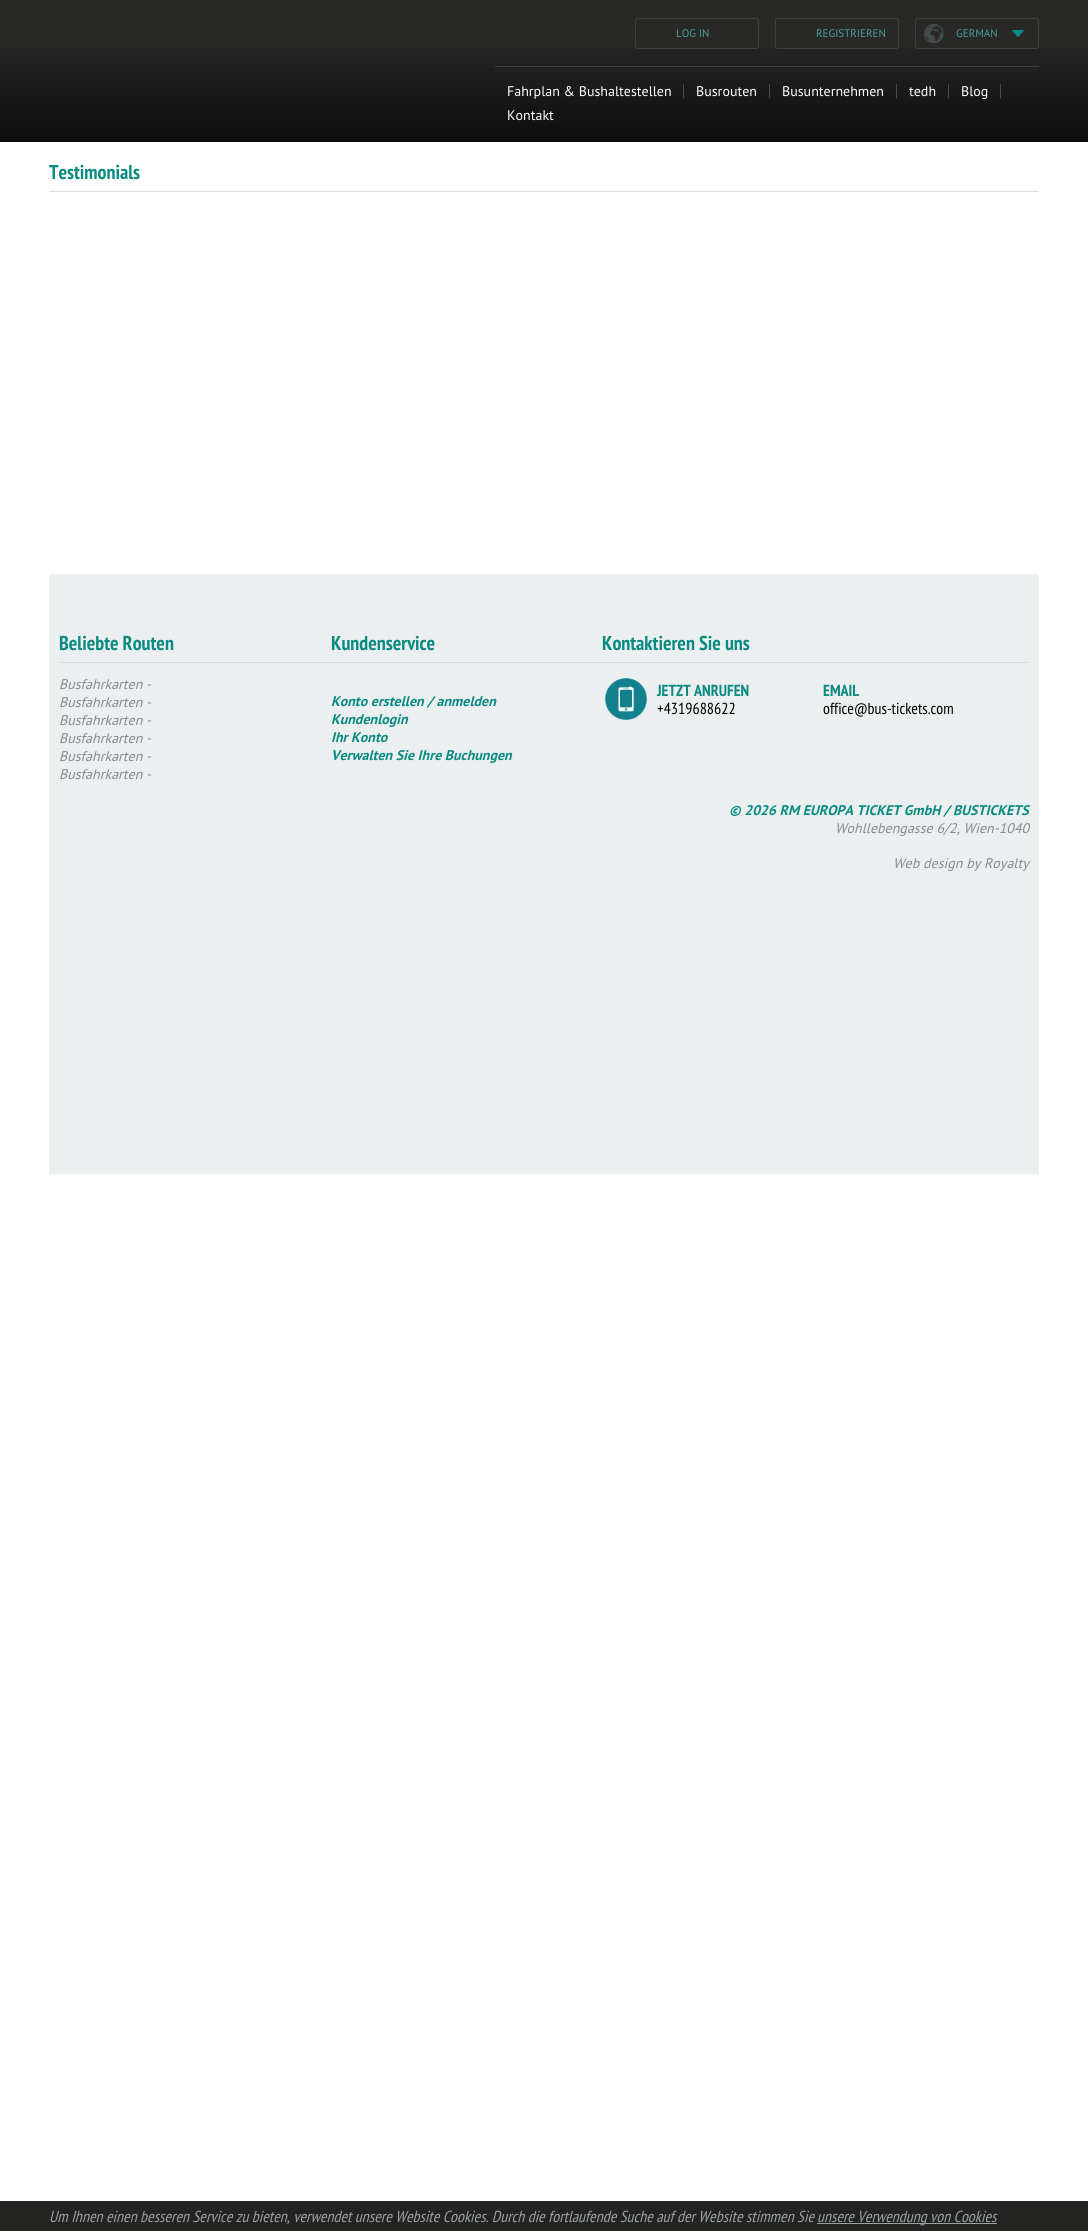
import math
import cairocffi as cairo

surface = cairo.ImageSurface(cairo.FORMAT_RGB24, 1088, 2231)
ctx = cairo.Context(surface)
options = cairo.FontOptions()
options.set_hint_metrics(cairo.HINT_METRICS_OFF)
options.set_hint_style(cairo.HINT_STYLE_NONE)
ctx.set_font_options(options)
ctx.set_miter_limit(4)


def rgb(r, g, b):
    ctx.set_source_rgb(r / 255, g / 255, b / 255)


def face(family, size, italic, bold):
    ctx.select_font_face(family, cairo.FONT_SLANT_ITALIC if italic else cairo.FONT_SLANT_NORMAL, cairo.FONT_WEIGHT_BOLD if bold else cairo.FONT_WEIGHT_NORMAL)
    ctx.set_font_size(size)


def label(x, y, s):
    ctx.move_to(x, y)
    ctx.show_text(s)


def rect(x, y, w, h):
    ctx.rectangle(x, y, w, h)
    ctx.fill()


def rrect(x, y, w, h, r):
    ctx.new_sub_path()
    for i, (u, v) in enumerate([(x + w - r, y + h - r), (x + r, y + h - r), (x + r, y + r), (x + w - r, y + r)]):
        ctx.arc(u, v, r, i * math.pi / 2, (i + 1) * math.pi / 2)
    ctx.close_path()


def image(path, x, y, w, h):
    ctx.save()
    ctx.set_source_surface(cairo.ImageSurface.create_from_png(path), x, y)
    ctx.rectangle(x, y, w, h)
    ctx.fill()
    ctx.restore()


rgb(255, 255, 255)
ctx.paint()
rgb(40, 40, 38)
rect(0, 0, 1088, 48)
image('image0.png', 0, 48, 1088, 94)
rrect(635.5, 18.5, 123, 30, 2.5)
rgb(63, 62, 61)
ctx.set_line_width(1)
ctx.stroke()
face('PT Sans', 11, 0, 0)
rgb(77, 159, 153)
label(676, 37, 'LOG IN')
rrect(775.5, 18.5, 123, 30, 2.5)
rgb(63, 62, 61)
ctx.stroke()
rgb(77, 159, 153)
label(816, 37, 'REGISTRIEREN')
image('image1.png', 924, 24, 100, 19)
rrect(915.5, 18.5, 123, 30, 2.5)
rgb(63, 62, 61)
ctx.stroke()
rgb(77, 159, 153)
label(956, 37, 'GERMAN')
rgb(63, 62, 61)
rect(495, 66, 544, 1)
rgb(66, 76, 75)
rect(683, 84, 1, 14)
face('PT Sans', 14, 0, 0)
rgb(255, 255, 255)
label(507, 96, 'Fahrplan & Bushaltestellen')
rgb(66, 76, 75)
rect(769, 84, 1, 14)
rgb(255, 255, 255)
label(696, 96, 'Busrouten')
rgb(66, 76, 75)
rect(896, 84, 1, 14)
rgb(255, 255, 255)
label(782, 96, 'Busunternehmen')
rgb(66, 76, 75)
rect(948, 84, 1, 14)
rgb(255, 255, 255)
label(909, 96, 'tedh')
rgb(66, 76, 75)
rect(1000, 84, 1, 14)
rgb(255, 255, 255)
label(961, 96, 'Blog')
label(507, 120, 'Kontakt')
face('PT Sans Narrow', 20, 0, 1)
rgb(10, 139, 130)
label(49, 179, 'Testimonials')
rgb(216, 221, 221)
rect(49, 191, 990, 1)
rgb(235, 239, 239)
rect(49, 574, 990, 600)
rgb(10, 139, 130)
label(59, 650, 'Beliebte Routen')
rgb(216, 221, 221)
rect(59, 662, 970, 1)
face('PT Sans', 14, 1, 0)
rgb(132, 140, 139)
label(59, 689, 'Busfahrkarten -')
label(59, 707, 'Busfahrkarten -')
label(59, 725, 'Busfahrkarten -')
label(59, 743, 'Busfahrkarten -')
label(59, 761, 'Busfahrkarten -')
label(59, 779, 'Busfahrkarten -')
face('PT Sans Narrow', 20, 0, 1)
rgb(10, 139, 130)
label(331, 650, 'Kundenservice')
face('PT Sans', 14, 1, 1)
label(331, 706, 'Konto erstellen / anmelden')
label(331, 724, 'Kundenlogin')
label(331, 742, 'Ihr Konto')
label(331, 760, 'Verwalten Sie Ihre Buchungen')
face('PT Sans Narrow', 20, 0, 1)
label(602, 650, 'Kontaktieren Sie uns')
image('image2.png', 605, 678, 42, 42)
face('PT Sans Narrow', 16, 0, 1)
label(657, 696, 'JETZT ANRUFEN')
face('PT Sans Narrow', 16, 0, 0)
rgb(0, 0, 0)
label(657, 714, '+4319688622')
face('PT Sans Narrow', 16, 0, 1)
rgb(10, 139, 130)
label(823, 696, 'EMAIL')
face('PT Sans Narrow', 16, 0, 0)
rgb(0, 0, 0)
label(823, 714, 'office@bus-tickets.com')
face('PT Sans', 14, 1, 1)
rgb(10, 139, 130)
label(729, 815, '© 2026 RM EUROPA TICKET GmbH / BUSTICKETS')
face('PT Sans', 14, 1, 0)
rgb(132, 140, 139)
label(835, 833, 'Wohllebengasse 6/2, Wien-1040')
label(893, 868, 'Web design by Royalty')
rgb(35, 35, 33)
rect(0, 2201, 1088, 30)
face('PT Sans Narrow', 16, 1, 0)
rgb(153, 161, 160)
label(49, 2222, 'Um Ihnen einen besseren Service zu bieten, verwendet unsere Website Cookies. Durch die fortlaufende Suche auf der Website stimmen Sie')
rect(817, 2223, 180, 1)
label(817, 2222, 'unsere Verwendung von Cookies')
surface.write_to_png('render.png')
